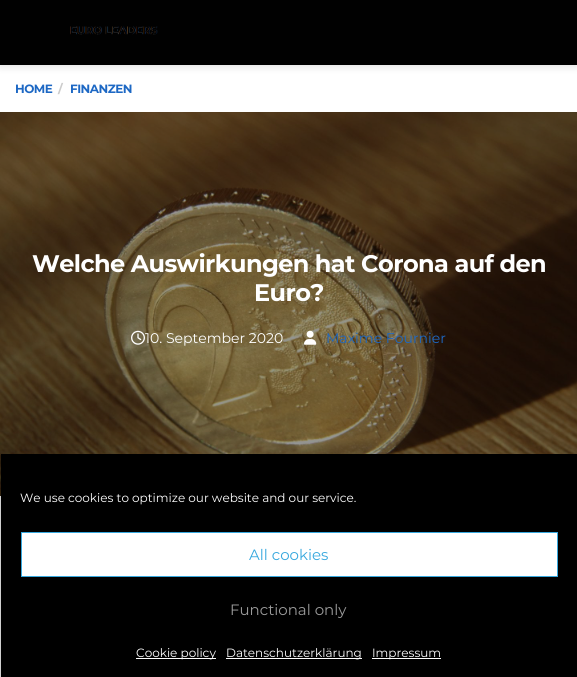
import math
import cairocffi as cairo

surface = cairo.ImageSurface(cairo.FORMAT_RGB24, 577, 677)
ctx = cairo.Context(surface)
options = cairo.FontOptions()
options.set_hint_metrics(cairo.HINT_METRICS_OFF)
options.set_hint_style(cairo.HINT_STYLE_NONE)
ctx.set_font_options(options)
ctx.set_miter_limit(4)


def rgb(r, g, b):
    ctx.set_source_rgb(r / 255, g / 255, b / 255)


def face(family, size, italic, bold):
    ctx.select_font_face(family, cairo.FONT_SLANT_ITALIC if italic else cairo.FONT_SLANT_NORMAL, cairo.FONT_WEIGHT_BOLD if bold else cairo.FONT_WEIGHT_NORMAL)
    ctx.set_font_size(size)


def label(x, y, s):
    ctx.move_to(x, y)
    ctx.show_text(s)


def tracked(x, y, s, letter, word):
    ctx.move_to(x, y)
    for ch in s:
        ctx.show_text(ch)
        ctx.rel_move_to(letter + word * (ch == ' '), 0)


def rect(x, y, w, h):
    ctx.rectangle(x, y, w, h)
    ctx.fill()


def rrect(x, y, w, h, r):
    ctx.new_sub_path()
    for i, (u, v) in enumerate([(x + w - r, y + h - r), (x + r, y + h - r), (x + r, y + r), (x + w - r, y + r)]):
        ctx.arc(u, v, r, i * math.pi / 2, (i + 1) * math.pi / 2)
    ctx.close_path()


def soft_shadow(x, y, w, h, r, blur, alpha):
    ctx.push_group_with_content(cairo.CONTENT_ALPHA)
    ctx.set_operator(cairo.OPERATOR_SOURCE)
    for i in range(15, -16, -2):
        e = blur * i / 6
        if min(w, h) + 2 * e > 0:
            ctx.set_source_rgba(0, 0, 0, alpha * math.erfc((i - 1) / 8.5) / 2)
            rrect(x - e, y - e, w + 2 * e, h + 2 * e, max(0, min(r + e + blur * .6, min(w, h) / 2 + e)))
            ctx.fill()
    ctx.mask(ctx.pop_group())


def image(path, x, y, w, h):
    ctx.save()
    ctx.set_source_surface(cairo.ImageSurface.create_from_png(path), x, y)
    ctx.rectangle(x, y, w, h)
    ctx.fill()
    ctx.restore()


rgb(255, 255, 255)
ctx.paint()
rgb(0, 0, 0)
soft_shadow(0, 0, 577, 65, 0, 5, 0.15)
rgb(1, 1, 1)
rect(0, 0, 577, 65)
image('image0.png', 70, 26, 88, 9)
face('Montserrat', 12, 0, 1)
rgb(29, 104, 196)
tracked(15, 93, 'HOME', -0.5, 0)
rgb(204, 204, 204)
tracked(58, 93, '/', -0.5, 0)
rgb(29, 104, 196)
tracked(70, 93, 'FINANZEN', -0.5, 0)
rgb(1, 1, 1)
rect(0, 112, 577, 384)
image('image1.png', 0, 112, 577, 384)
face('Montserrat', 24, 0, 1)
rgb(255, 255, 255)
tracked(32, 272, 'Welche Auswirkungen hat Corona auf den', -0.6, 0)
tracked(254, 301, 'Euro?', -0.6, 0)
image('image2.png', 131, 330, 14, 15)
face('Montserrat', 14, 0, 0)
label(145, 343, '10. September 2020')
image('image3.png', 304, 330, 13, 15)
rgb(29, 104, 196)
label(326, 343, 'Maxime Fournier')
rgb(0, 0, 0)
soft_shadow(1, 460, 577, 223, 0, 3, 0.23)
soft_shadow(1, 464, 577, 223, 0, 10, 0.19)
rgb(0, 0, 0)
rect(1, 454, 576, 223)
face('Montserrat', 12, 0, 0)
rgb(255, 255, 255)
label(20, 502, 'We use cookies to optimize our website and our service.')
ctx.rectangle(21.5, 532.5, 536, 44)
ctx.fill_preserve()
rgb(55, 168, 222)
ctx.set_line_width(1)
ctx.stroke()
face('Montserrat', 15, 0, 0)
label(249, 560, 'All cookies')
rgb(155, 155, 155)
label(230, 615, 'Functional only')
rgb(255, 255, 255)
rect(136, 658, 80, 1)
face('Montserrat', 12, 0, 0)
label(136, 657, 'Cookie policy')
rect(226, 658, 136, 1)
label(226, 657, 'Datenschutzerklärung')
rect(372, 658, 69, 1)
label(372, 657, 'Impressum')
surface.write_to_png('render.png')
